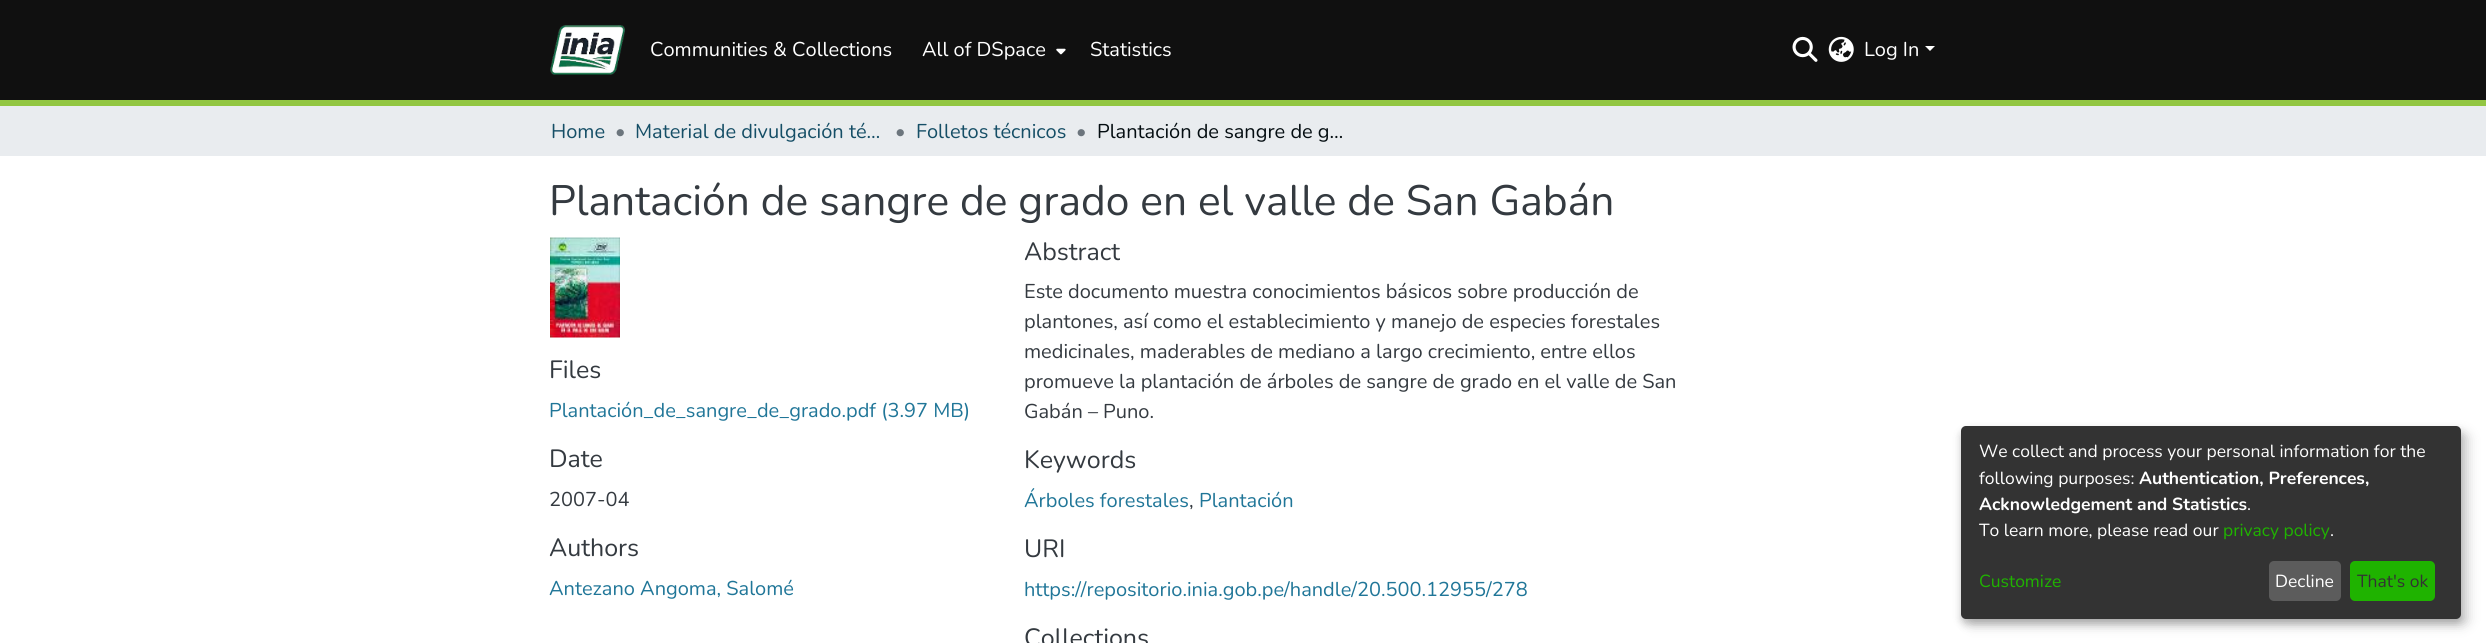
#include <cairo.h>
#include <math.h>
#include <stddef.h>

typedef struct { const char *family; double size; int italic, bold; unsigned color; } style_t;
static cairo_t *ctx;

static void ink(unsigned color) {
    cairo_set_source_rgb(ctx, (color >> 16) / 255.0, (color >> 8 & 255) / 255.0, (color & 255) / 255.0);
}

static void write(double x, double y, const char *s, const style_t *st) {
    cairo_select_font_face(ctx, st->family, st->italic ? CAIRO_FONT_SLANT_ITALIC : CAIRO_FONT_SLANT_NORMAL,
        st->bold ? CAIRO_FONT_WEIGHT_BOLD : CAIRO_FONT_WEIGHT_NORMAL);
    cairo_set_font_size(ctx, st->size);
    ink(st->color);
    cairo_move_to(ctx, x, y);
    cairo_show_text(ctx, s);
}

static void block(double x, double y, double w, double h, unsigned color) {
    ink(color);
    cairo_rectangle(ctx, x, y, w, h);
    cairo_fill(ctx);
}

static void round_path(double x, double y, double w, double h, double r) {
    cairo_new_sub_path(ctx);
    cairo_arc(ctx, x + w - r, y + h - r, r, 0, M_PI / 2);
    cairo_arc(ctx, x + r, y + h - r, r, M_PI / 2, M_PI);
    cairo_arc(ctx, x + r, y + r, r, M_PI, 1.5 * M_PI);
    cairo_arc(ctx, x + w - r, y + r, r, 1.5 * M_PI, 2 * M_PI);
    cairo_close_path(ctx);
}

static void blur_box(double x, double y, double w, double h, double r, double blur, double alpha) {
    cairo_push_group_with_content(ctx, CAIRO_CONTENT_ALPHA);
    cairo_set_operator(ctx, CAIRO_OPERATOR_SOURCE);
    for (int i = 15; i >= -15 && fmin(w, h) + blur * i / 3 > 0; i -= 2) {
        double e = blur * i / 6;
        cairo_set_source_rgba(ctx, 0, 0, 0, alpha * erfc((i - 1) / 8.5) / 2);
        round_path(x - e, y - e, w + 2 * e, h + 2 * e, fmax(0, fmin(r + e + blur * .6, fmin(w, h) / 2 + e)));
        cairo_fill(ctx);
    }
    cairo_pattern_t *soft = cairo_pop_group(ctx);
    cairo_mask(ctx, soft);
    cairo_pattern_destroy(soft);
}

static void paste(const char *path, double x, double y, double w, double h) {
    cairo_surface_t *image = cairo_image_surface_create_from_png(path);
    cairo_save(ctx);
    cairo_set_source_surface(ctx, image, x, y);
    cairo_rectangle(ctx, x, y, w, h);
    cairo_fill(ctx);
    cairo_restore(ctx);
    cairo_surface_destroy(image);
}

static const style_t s1 = {"Nunito", 20, 0, 0, 0xffffff};
static const style_t s2 = {"Nunito", 20, 0, 0, 0x154e66};
static const style_t s3 = {"Nunito", 20, 0, 0, 0x6c757d};
static const style_t s4 = {"Nunito", 20, 0, 0, 0x040d11};
static const style_t s5 = {"Nunito", 42.5, 0, 0, 0x343a40};
static const style_t s6 = {"Nunito", 25, 0, 0, 0x343a40};
static const style_t s7 = {"Nunito", 20, 0, 0, 0x207698};
static const style_t s8 = {"Nunito", 20, 0, 0, 0x343a40};
static const style_t s9 = {"Nunito", 17.5, 0, 0, 0xffffff};
static const style_t s10 = {"Nunito", 17.5, 0, 1, 0xffffff};
static const style_t s11 = {"Nunito", 17.5, 0, 0, 0x1fb300};
static const style_t s12 = {"Nunito", 17.5, 0, 0, 0x333333};

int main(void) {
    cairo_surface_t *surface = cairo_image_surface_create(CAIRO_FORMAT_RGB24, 2486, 643);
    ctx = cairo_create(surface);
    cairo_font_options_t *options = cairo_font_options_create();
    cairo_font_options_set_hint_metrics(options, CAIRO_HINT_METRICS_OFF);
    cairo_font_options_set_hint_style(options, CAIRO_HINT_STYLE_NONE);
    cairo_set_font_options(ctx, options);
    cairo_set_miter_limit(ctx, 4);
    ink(0xffffff);
    cairo_paint(ctx);
    block(0, 100, 2486, 6, 0x92c642);
    block(0, 0, 2486, 100, 0x101010);
    paste("pic1.png", 550, 25, 75, 50);
    write(650, 56, "Communities & Collections", &s1);
    write(922, 56, "All of DSpace", &s1);
    paste("pic2.png", 1056, 48, 10, 7);
    write(1090, 56, "Statistics", &s1);
    paste("pic3.png", 1792, 36, 26, 26);
    paste("pic4.png", 1828, 36, 26, 26);
    write(1864, 56, "Log In", &s1);
    cairo_new_path(ctx);
    cairo_move_to(ctx, 1925, 46);
    cairo_line_to(ctx, 1935, 46);
    cairo_line_to(ctx, 1930, 51);
    cairo_close_path(ctx);
    cairo_fill(ctx);
    block(0, 106, 2486, 50, 0xe9ecef);
    write(551, 138, "Home", &s2);
    write(615, 138, "•", &s3);
    write(635, 138, "Material de divulgación té…", &s2);
    write(895, 138, "•", &s3);
    write(916, 138, "Folletos técnicos", &s2);
    write(1076, 138, "•", &s3);
    write(1097, 138, "Plantación de sangre de g…", &s4);
    write(549, 215, "Plantación de sangre de grado en el valle de San Gabán", &s5);
    paste("pic5.png", 550, 237, 70, 101);
    write(549, 378, "Files", &s6);
    write(549, 417, "Plantación_de_sangre_de_grado.pdf (3.97 MB)", &s7);
    write(549, 467, "Date", &s6);
    write(549, 506, "2007-04", &s8);
    write(549, 556, "Authors", &s6);
    write(549, 595, "Antezano Angoma, Salomé", &s7);
    write(1024, 260, "Abstract", &s6);
    write(1024, 298, "Este documento muestra conocimientos básicos sobre producción de", &s8);
    write(1024, 328, "plantones, así como el establecimiento y manejo de especies forestales", &s8);
    write(1024, 358, "medicinales, maderables de mediano a largo crecimiento, entre ellos", &s8);
    write(1024, 388, "promueve la plantación de árboles de sangre de grado en el valle de San", &s8);
    write(1024, 418, "Gabán – Puno.", &s8);
    write(1024, 468, "Keywords", &s6);
    write(1024, 507, "Árboles forestales", &s7);
    write(1189, 507, ",", &s8);
    write(1199, 507, "Plantación", &s7);
    write(1024, 557, "URI", &s6);
    write(1024, 596, "https://repositorio.inia.gob.pe/handle/20.500.12955/278", &s7);
    write(1024, 646, "Collections", &s6);
    ink(0x000000);
    blur_box(1968, 433, 500, 192, 5, 6, 0.19);
    blur_box(1961, 431, 500, 193, 5, 4, 0.2);
    ink(0x333333);
    round_path(1961, 426, 500, 193, 5);
    cairo_fill(ctx);
    write(1979, 457, "We collect and process your personal information for the", &s9);
    write(1979, 484, "following purposes:", &s9);
    write(2139, 484, "Authentication, Preferences,", &s10);
    write(1979, 510, "Acknowledgement and Statistics", &s10);
    write(2247, 510, ".", &s9);
    write(1979, 536, "To learn more, please read our", &s9);
    write(2223, 536, "privacy policy", &s11);
    write(2330, 536, ".", &s9);
    write(1979, 587, "Customize", &s11);
    ink(0x5c5c5c);
    round_path(2269, 561, 72, 40, 5);
    cairo_fill(ctx);
    write(2275, 587, "Decline", &s9);
    ink(0x1fb300);
    round_path(2350, 561, 85, 40, 5);
    cairo_fill(ctx);
    write(2357, 587, "That's ok", &s12);
    cairo_surface_write_to_png(surface, "screenshot.png");
    cairo_font_options_destroy(options);
    cairo_destroy(ctx);
    cairo_surface_destroy(surface);
    return 0;
}
